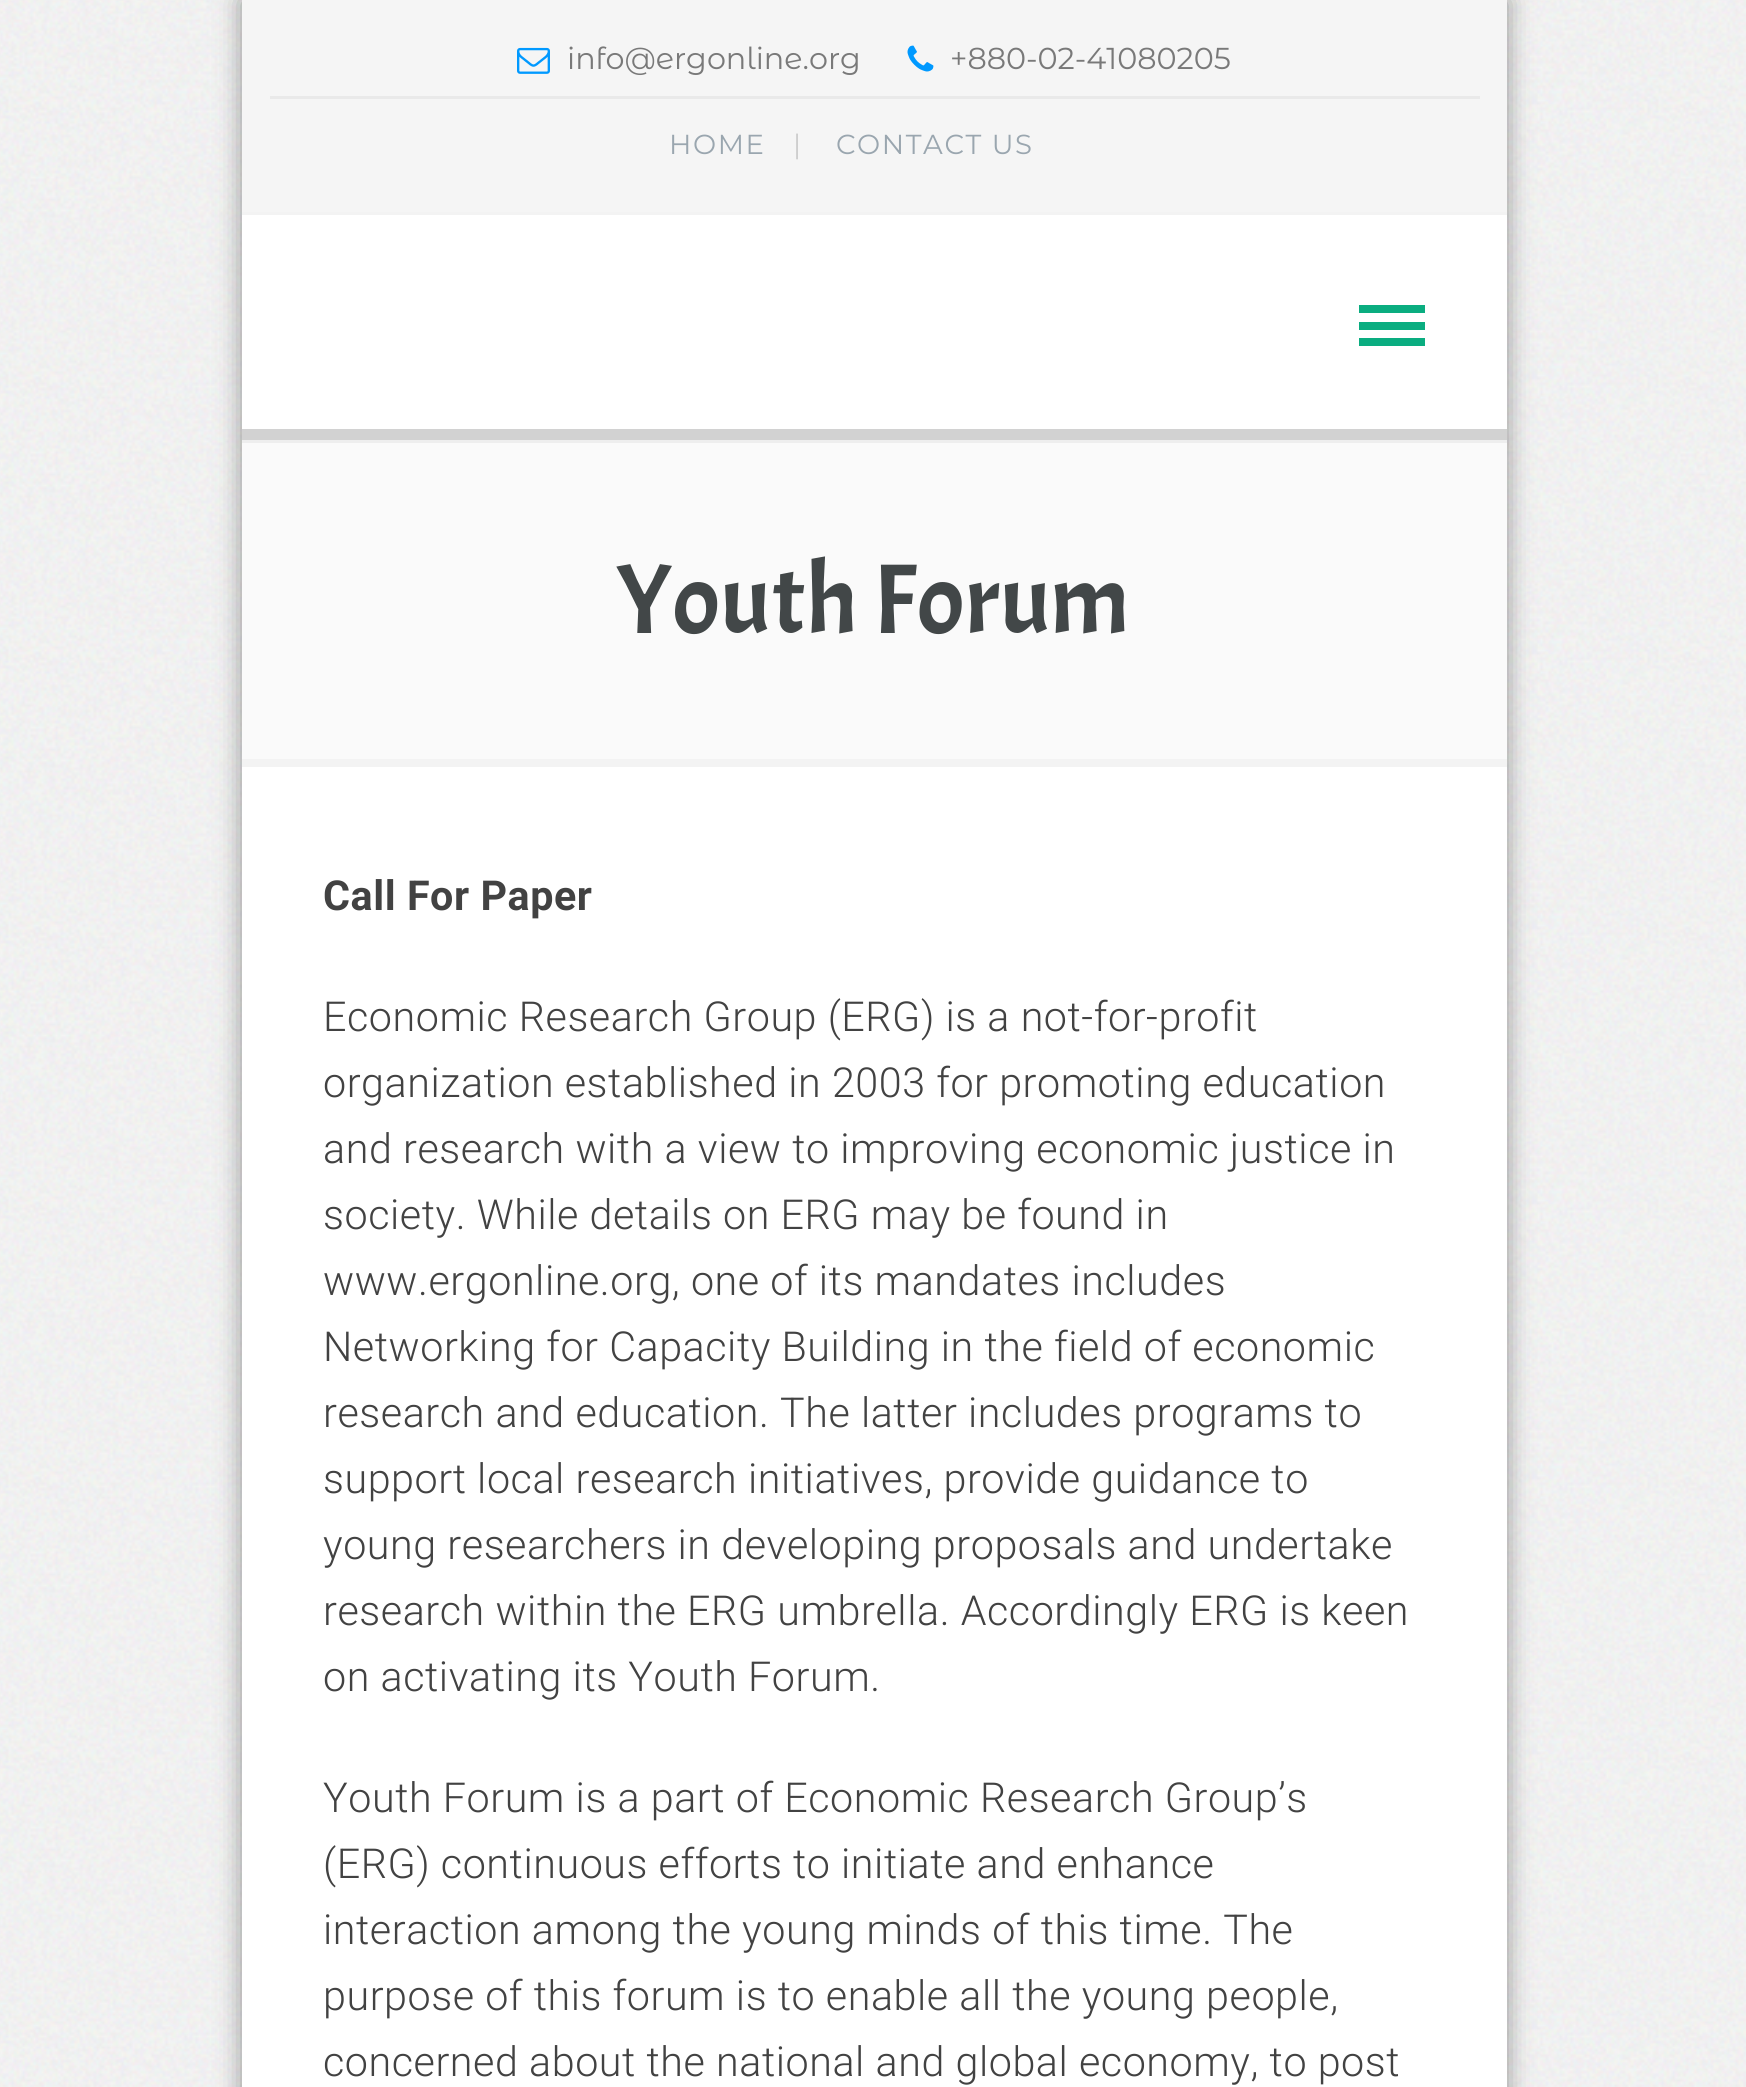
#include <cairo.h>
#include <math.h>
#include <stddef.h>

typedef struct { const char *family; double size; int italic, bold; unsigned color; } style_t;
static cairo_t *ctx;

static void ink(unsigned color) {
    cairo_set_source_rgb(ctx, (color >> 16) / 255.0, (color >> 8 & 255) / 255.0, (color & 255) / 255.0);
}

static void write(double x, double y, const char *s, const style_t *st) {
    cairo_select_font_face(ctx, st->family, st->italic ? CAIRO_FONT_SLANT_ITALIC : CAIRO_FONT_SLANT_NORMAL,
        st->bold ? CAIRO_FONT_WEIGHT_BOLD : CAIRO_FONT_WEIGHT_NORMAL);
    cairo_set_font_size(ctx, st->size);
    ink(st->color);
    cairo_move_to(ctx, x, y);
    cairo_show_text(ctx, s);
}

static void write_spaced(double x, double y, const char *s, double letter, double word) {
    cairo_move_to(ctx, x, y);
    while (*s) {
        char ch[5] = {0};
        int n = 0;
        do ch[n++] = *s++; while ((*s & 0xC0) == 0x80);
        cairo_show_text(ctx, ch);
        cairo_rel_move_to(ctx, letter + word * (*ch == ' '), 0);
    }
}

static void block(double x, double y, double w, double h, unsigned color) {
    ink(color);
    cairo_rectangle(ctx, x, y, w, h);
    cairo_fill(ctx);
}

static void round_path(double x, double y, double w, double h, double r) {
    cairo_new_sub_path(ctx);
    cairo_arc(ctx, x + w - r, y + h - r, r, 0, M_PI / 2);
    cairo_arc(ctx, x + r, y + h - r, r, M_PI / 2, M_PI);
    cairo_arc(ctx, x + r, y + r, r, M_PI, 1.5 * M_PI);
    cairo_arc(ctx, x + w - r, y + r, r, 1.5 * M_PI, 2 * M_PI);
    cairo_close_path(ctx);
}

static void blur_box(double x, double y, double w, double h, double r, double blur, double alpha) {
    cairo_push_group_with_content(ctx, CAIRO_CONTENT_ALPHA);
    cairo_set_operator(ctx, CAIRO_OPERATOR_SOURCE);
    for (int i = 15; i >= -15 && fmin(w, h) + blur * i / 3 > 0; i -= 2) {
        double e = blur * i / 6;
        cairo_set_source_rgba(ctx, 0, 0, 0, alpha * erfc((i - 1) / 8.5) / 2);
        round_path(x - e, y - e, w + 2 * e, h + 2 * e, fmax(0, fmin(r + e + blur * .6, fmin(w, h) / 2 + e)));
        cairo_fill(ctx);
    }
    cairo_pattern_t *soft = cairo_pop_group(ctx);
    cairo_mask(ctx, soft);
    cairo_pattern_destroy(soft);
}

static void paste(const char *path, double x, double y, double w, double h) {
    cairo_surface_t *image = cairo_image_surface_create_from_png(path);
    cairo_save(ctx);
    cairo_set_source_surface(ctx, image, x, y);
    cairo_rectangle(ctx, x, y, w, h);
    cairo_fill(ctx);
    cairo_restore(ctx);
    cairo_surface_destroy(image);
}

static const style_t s1 = {"Montserrat Alternates", 30.25, 0, 0, 0x797979};
static const style_t s2 = {"Acme", 99, 0, 0, 0x424748};

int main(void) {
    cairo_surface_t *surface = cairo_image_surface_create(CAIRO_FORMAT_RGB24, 1746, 2087);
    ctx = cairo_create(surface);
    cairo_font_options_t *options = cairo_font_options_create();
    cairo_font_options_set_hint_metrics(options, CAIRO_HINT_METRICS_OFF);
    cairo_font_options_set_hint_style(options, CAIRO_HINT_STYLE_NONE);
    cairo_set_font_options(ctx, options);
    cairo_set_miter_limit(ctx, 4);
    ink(0xffffff);
    cairo_paint(ctx);
    paste("pic1.png", 0, 0, 1746, 2087);
    ink(0x000000);
    blur_box(242, 0, 1265, 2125, 0, 12.5, 0.4);
    block(242, 215, 1265, 1872, 0xffffff);
    block(242, 0, 1265, 212, 0xf5f5f5);
    block(242, 212, 1265, 3, 0xf3f3f3);
    block(270, 96, 1210, 3, 0xe9e9e9);
    paste("pic2.png", 517, 47, 33, 27);
    write(567, 69, "info@ergonline.org", &s1);
    paste("pic3.png", 907, 45, 27, 27);
    write(950, 69, "+880-02-41080205", &s1);
    cairo_select_font_face(ctx, "Montserrat", CAIRO_FONT_SLANT_NORMAL, CAIRO_FONT_WEIGHT_NORMAL);
    cairo_set_font_size(ctx, 27.5);
    ink(0x9aa6af);
    write_spaced(669, 154, "HOME", 1.6, 0);
    ink(0xcccccc);
    write_spaced(793, 154, "|", 1.6, 0);
    ink(0x9aa6af);
    write_spaced(836, 154, "CONTACT US", 1.6, 0);
    block(242, 429, 1265, 11, 0xd2d2d2);
    block(1359, 305, 66, 8, 0x0aad80);
    block(1359, 322, 66, 8, 0x0aad80);
    block(1359, 338, 66, 8, 0x0aad80);
    block(242, 443, 1265, 316, 0xfafafa);
    block(242, 440, 1265, 3, 0xeeeeee);
    block(242, 759, 1265, 8, 0xf3f3f3);
    write(616, 633, "Youth Forum", &s2);
    cairo_select_font_face(ctx, "Roboto", CAIRO_FONT_SLANT_NORMAL, CAIRO_FONT_WEIGHT_BOLD);
    cairo_set_font_size(ctx, 41.25);
    ink(0x424242);
    write_spaced(323, 910, "Call For Paper", 0.55, 0);
    cairo_select_font_face(ctx, "Roboto Light", CAIRO_FONT_SLANT_NORMAL, CAIRO_FONT_WEIGHT_NORMAL);
    write_spaced(323, 1031, "Economic Research Group (ERG) is a not-for-profit", 0.55, 0);
    write_spaced(323, 1097, "organization established in 2003 for promoting education", 0.55, 0);
    write_spaced(323, 1163, "and research with a view to improving economic justice in", 0.55, 0);
    write_spaced(323, 1229, "society. While details on ERG may be found in", 0.55, 0);
    write_spaced(323, 1295, "www.ergonline.org, one of its mandates includes", 0.55, 0);
    write_spaced(323, 1361, "Networking for Capacity Building in the field of economic", 0.55, 0);
    write_spaced(323, 1427, "research and education. The latter includes programs to", 0.55, 0);
    write_spaced(323, 1493, "support local research initiatives, provide guidance to", 0.55, 0);
    write_spaced(323, 1559, "young researchers in developing proposals and undertake", 0.55, 0);
    write_spaced(323, 1625, "research within the ERG umbrella. Accordingly ERG is keen", 0.55, 0);
    write_spaced(323, 1691, "on activating its Youth Forum.", 0.55, 0);
    write_spaced(323, 1812, "Youth Forum is a part of Economic Research Group’s", 0.55, 0);
    write_spaced(323, 1878, "(ERG) continuous efforts to initiate and enhance", 0.55, 0);
    write_spaced(323, 1944, "interaction among the young minds of this time. The", 0.55, 0);
    write_spaced(323, 2010, "purpose of this forum is to enable all the young people,", 0.55, 0);
    write_spaced(323, 2076, "concerned about the national and global economy, to post", 0.55, 0);
    cairo_surface_write_to_png(surface, "screenshot.png");
    cairo_font_options_destroy(options);
    cairo_destroy(ctx);
    cairo_surface_destroy(surface);
    return 0;
}
